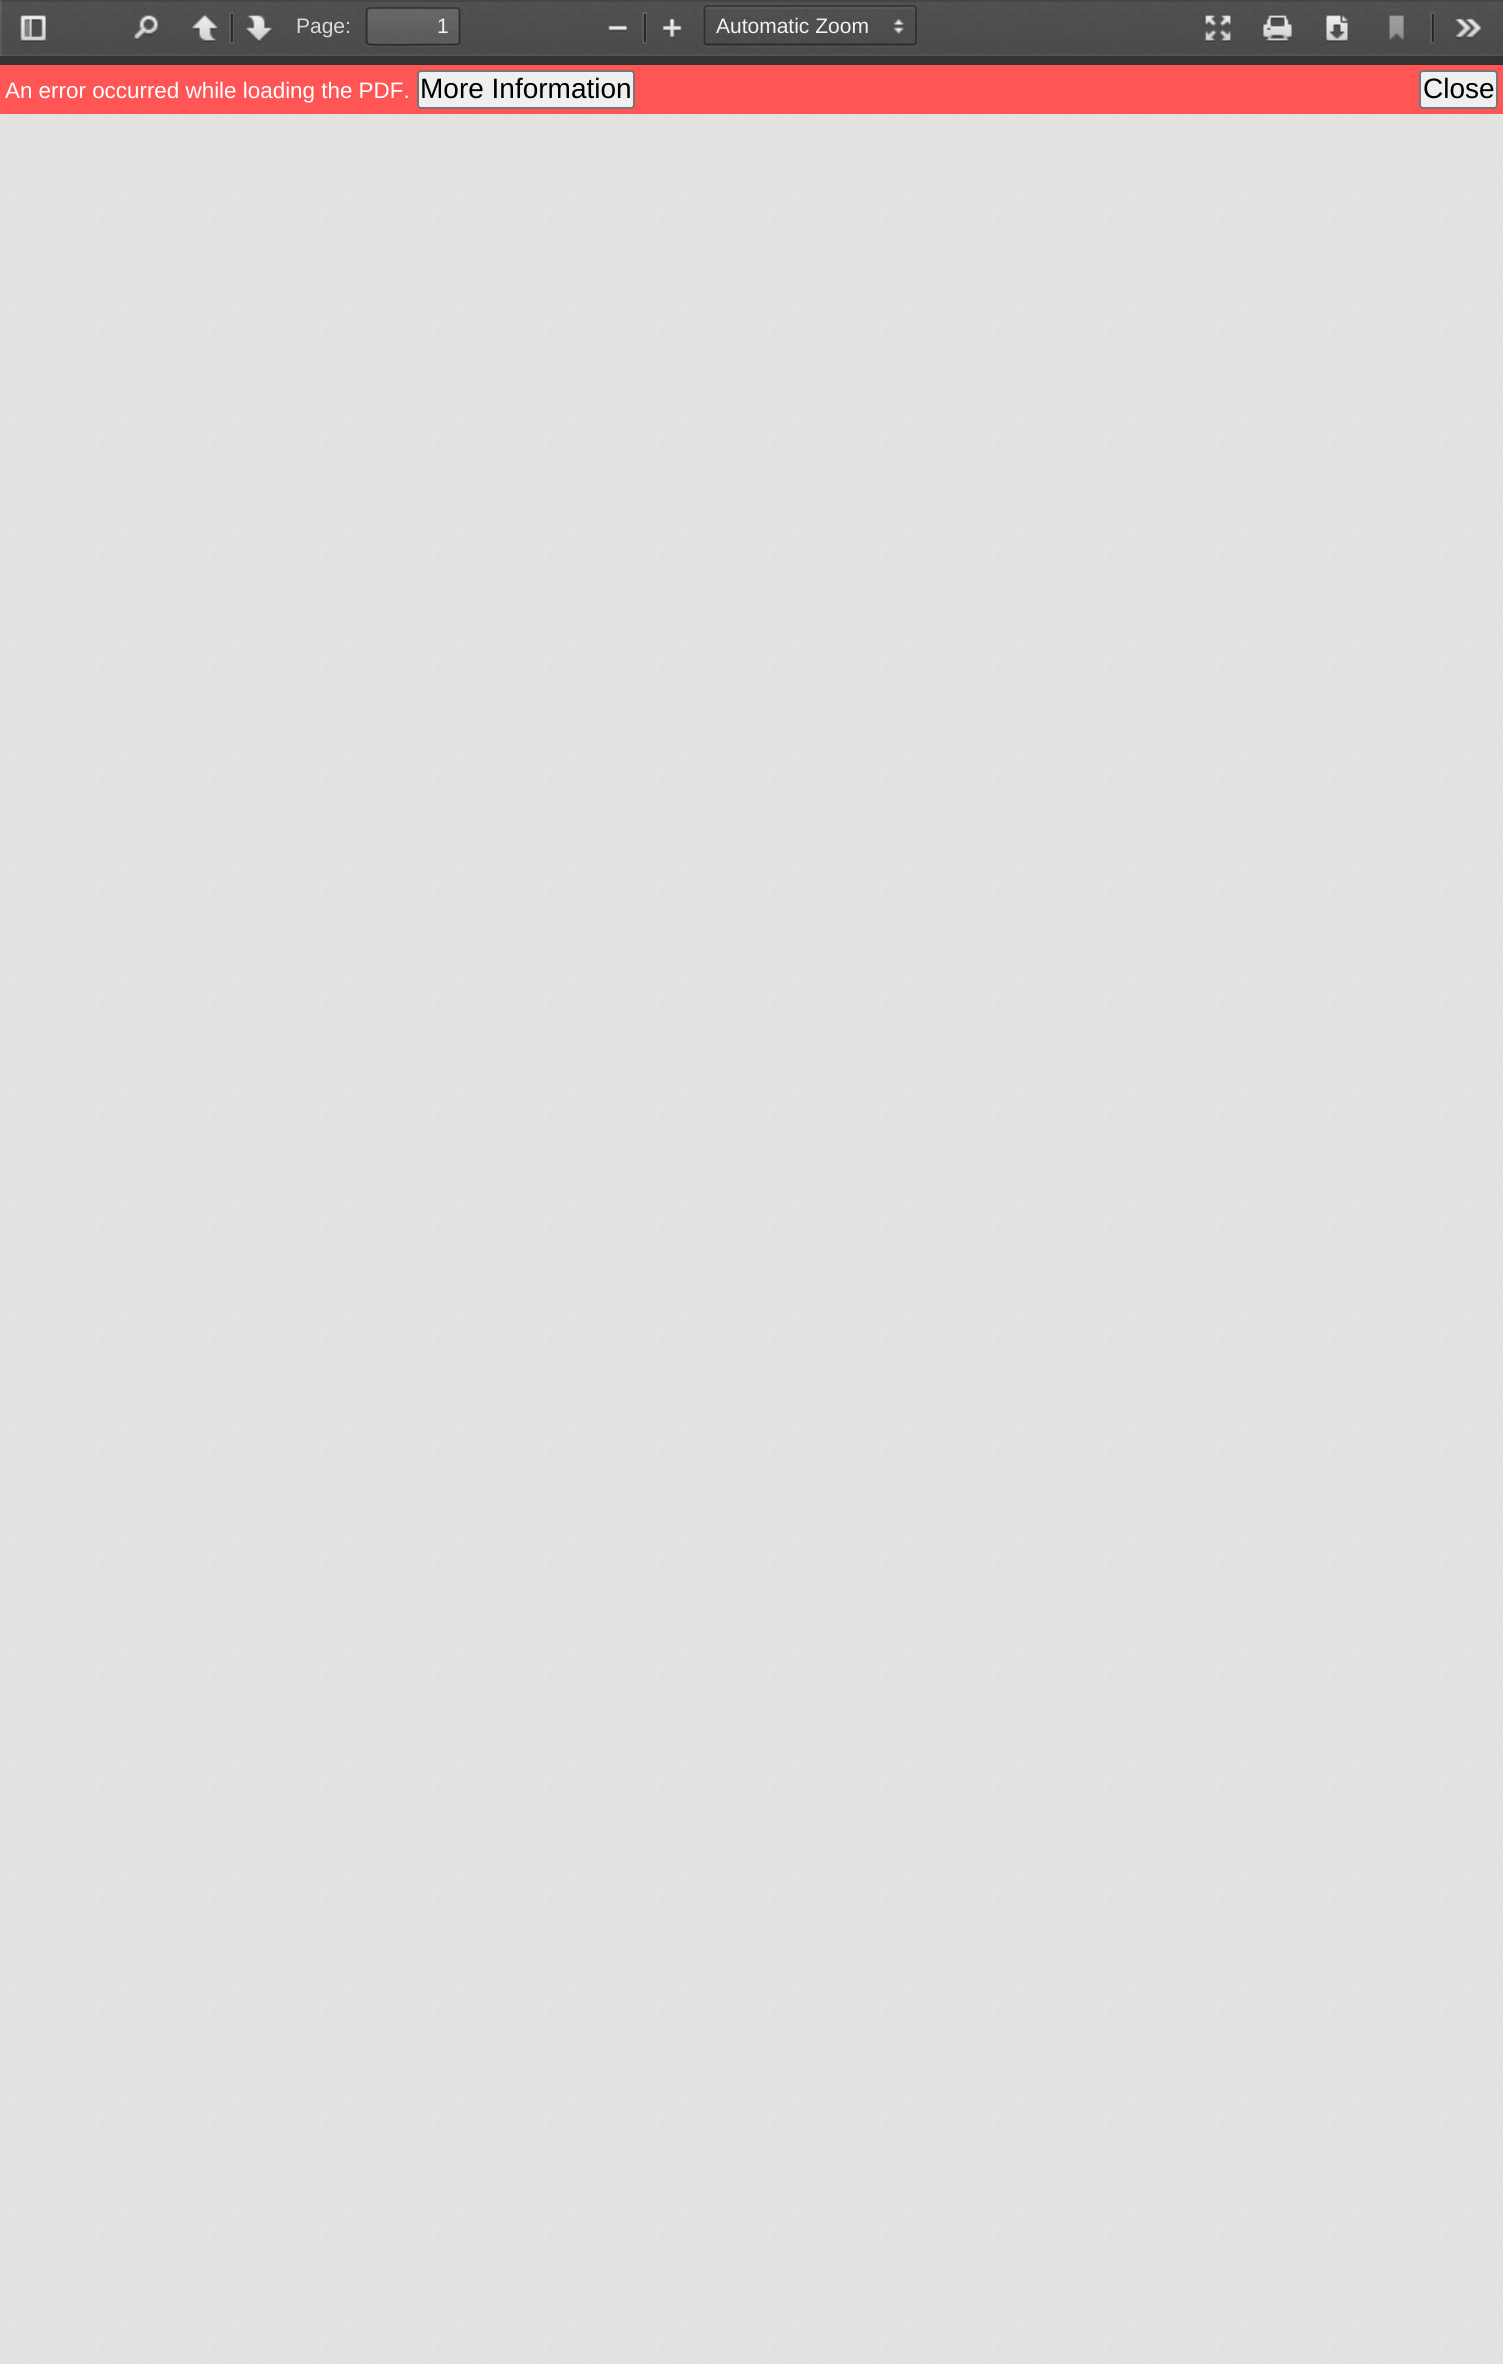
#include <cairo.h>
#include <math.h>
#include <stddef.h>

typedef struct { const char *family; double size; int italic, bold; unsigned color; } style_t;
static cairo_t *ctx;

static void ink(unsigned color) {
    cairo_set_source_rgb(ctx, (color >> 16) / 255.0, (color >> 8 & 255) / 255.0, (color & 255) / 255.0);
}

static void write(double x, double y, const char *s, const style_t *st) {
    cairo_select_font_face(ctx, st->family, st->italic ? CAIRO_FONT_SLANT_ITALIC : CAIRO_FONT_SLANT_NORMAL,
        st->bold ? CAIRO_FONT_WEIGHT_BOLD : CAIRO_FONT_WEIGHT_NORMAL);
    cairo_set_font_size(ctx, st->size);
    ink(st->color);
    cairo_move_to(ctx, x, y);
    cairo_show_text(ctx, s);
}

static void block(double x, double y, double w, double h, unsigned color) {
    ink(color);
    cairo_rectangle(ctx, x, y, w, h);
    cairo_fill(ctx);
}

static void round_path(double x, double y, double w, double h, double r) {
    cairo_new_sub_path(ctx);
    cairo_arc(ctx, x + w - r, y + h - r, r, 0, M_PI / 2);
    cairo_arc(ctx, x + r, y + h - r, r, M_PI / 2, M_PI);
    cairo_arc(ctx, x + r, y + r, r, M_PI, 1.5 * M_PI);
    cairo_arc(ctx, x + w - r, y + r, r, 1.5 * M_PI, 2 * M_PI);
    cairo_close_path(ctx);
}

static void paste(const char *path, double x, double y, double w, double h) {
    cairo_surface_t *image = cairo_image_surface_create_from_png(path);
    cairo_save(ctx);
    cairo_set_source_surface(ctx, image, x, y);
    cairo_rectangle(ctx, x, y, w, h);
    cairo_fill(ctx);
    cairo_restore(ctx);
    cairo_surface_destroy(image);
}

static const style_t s1 = {"Liberation Sans", 21, 0, 0, 0xd9d9d9};
static const style_t s2 = {"Liberation Sans", 21, 0, 0, 0xf2f2f2};
static const style_t s3 = {"Liberation Sans", 22.4, 0, 0, 0xffffff};
static const style_t s4 = {"Liberation Sans", 28, 0, 0, 0x000000};

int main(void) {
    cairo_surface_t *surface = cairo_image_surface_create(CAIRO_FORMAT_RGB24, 1503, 2364);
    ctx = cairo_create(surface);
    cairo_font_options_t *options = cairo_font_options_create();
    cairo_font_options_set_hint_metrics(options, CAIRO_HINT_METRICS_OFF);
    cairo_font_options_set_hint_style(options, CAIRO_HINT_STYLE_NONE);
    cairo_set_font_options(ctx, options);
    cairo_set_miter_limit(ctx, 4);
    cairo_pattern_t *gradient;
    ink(0xeeeeee);
    cairo_paint(ctx);
    paste("pic1.png", 0, 0, 1503, 2364);
    paste("pic2.png", 0, 0, 1503, 56);
    cairo_set_source_rgba(ctx, 1, 1, 1, 0.05);
    cairo_rectangle(ctx, 0, 54, 1503, 2);
    cairo_fill(ctx);
    cairo_set_source_rgba(ctx, 0, 0, 0, 0.15);
    cairo_rectangle(ctx, 0, 0, 1503, 2);
    cairo_fill(ctx);
    cairo_set_source_rgba(ctx, 1, 1, 1, 0.08);
    cairo_rectangle(ctx, 0, 0, 2, 56);
    cairo_fill(ctx);
    paste("pic3.png", 20, 15, 26, 27);
    paste("pic4.png", 134, 15, 24, 26);
    paste("pic5.png", 192, 15, 26, 27);
    cairo_rectangle(ctx, 230, 13, 3, 30);
    cairo_stroke(ctx);
    cairo_set_source_rgba(ctx, 0, 0, 0, 0.5);
    cairo_rectangle(ctx, 231, 14, 2, 28);
    cairo_fill(ctx);
    paste("pic6.png", 246, 15, 26, 27);
    write(296, 33, "Page:", &s1);
    cairo_set_source_rgba(ctx, 1, 1, 1, 0.05);
    cairo_new_path(ctx);
    cairo_move_to(ctx, 366, 43);
    cairo_curve_to(ctx, 366, 45, 368, 47, 370, 47);
    cairo_line_to(ctx, 456, 47);
    cairo_curve_to(ctx, 458, 47, 460, 45, 460, 43);
    cairo_line_to(ctx, 458, 45);
    cairo_line_to(ctx, 384, 46);
    cairo_curve_to(ctx, 381, 46, 368, 48, 366, 43);
    cairo_close_path(ctx);
    cairo_fill(ctx);
    cairo_set_source_rgba(ctx, 1, 1, 1, 0.09);
    round_path(368, 9, 91, 35, 2);
    cairo_fill(ctx);
    gradient = cairo_pattern_create_linear(413, 9, 413, 44);
    cairo_pattern_add_color_stop_rgba(gradient, 0, 1, 1, 1, 0.05);
    cairo_pattern_add_color_stop_rgba(gradient, 1, 1, 1, 1, 0);
    cairo_set_source(ctx, gradient);
    cairo_pattern_destroy(gradient);
    cairo_rectangle(ctx, 368, 9, 91, 20);
    cairo_fill(ctx);
    cairo_set_source_rgba(ctx, 0, 0, 0, 0.05);
    cairo_new_path(ctx);
    cairo_move_to(ctx, 369, 10);
    cairo_line_to(ctx, 457, 10);
    cairo_curve_to(ctx, 458, 10, 458, 11, 458, 12);
    cairo_line_to(ctx, 458, 44);
    cairo_curve_to(ctx, 459, 43, 459, 43, 459, 42);
    cairo_line_to(ctx, 459, 11);
    cairo_curve_to(ctx, 459, 10, 458, 9, 457, 9);
    cairo_line_to(ctx, 370, 9);
    cairo_curve_to(ctx, 369, 9, 368, 10, 368, 11);
    cairo_line_to(ctx, 368, 12);
    cairo_curve_to(ctx, 368, 11, 368, 10, 369, 10);
    cairo_close_path(ctx);
    cairo_fill(ctx);
    cairo_new_path(ctx);
    cairo_move_to(ctx, 367.5, 8.5);
    cairo_line_to(ctx, 368, 8.5);
    cairo_curve_to(ctx, 369.5, 7, 434.5, 8, 442, 8);
    cairo_line_to(ctx, 457, 8);
    cairo_line_to(ctx, 458.5, 8.5);
    cairo_set_source_rgba(ctx, 0, 0, 0, 0.32);
    cairo_set_line_width(ctx, 1.8);
    cairo_stroke(ctx);
    cairo_new_path(ctx);
    cairo_move_to(ctx, 458.5, 8.5);
    cairo_curve_to(ctx, 459, 9, 459.5, 10, 459.5, 10.5);
    cairo_line_to(ctx, 459.5, 42);
    cairo_curve_to(ctx, 459.5, 42.5, 459, 43.5, 458.5, 44);
    cairo_set_source_rgba(ctx, 0, 0, 0, 0.38);
    cairo_stroke(ctx);
    cairo_new_path(ctx);
    cairo_move_to(ctx, 458.5, 44);
    cairo_line_to(ctx, 457, 44.5);
    cairo_line_to(ctx, 442, 44.5);
    cairo_curve_to(ctx, 434.5, 44.5, 369.5, 45.5, 368, 44);
    cairo_line_to(ctx, 367.5, 44);
    cairo_set_source_rgba(ctx, 0, 0, 0, 0.42);
    cairo_stroke(ctx);
    cairo_new_path(ctx);
    cairo_move_to(ctx, 367.5, 44);
    cairo_curve_to(ctx, 367, 43.5, 366.5, 42.5, 366.5, 42);
    cairo_line_to(ctx, 366.5, 10.5);
    cairo_curve_to(ctx, 366.5, 10, 367, 9, 367.5, 8.5);
    cairo_set_source_rgba(ctx, 0, 0, 0, 0.38);
    cairo_stroke(ctx);
    write(437, 33, "1", &s2);
    paste("pic7.png", 608, 25, 19, 7);
    cairo_rectangle(ctx, 643, 13, 3, 30);
    cairo_set_source_rgba(ctx, 1, 1, 1, 0.08);
    cairo_set_line_width(ctx, 2);
    cairo_stroke(ctx);
    cairo_set_source_rgba(ctx, 0, 0, 0, 0.5);
    cairo_rectangle(ctx, 644, 14, 2, 28);
    cairo_fill(ctx);
    paste("pic8.png", 662, 18, 20, 21);
    cairo_set_source_rgba(ctx, 1, 1, 1, 0.05);
    cairo_new_path(ctx);
    cairo_move_to(ctx, 704, 44);
    cairo_curve_to(ctx, 705, 46, 706, 47, 708, 47);
    cairo_line_to(ctx, 913, 47);
    cairo_curve_to(ctx, 915, 47, 917, 45, 917, 43);
    cairo_line_to(ctx, 917, 42);
    cairo_curve_to(ctx, 917, 44, 915, 46, 914, 46);
    cairo_line_to(ctx, 707, 46);
    cairo_curve_to(ctx, 706, 46, 705, 45, 704, 44);
    cairo_close_path(ctx);
    cairo_fill(ctx);
    paste("pic9.png", 893, 18, 11, 16);
    cairo_new_path(ctx);
    cairo_move_to(ctx, 707, 9);
    cairo_line_to(ctx, 914, 9);
    cairo_line_to(ctx, 915, 10);
    cairo_curve_to(ctx, 915, 9, 915, 7, 913, 7);
    cairo_line_to(ctx, 707, 7);
    cairo_curve_to(ctx, 705, 7, 705, 9, 705, 10);
    cairo_close_path(ctx);
    cairo_fill(ctx);
    cairo_new_path(ctx);
    cairo_move_to(ctx, 705, 7);
    cairo_line_to(ctx, 707, 6);
    cairo_line_to(ctx, 913.5, 6);
    cairo_line_to(ctx, 915.5, 7);
    cairo_set_source_rgba(ctx, 0, 0, 0, 0.32);
    cairo_set_line_width(ctx, 1.8);
    cairo_stroke(ctx);
    cairo_new_path(ctx);
    cairo_move_to(ctx, 915.5, 7);
    cairo_curve_to(ctx, 916, 7.5, 916, 8, 916, 9);
    cairo_line_to(ctx, 916, 42);
    cairo_curve_to(ctx, 916, 42.5, 916, 43.5, 915.5, 44);
    cairo_set_source_rgba(ctx, 0, 0, 0, 0.38);
    cairo_stroke(ctx);
    cairo_new_path(ctx);
    cairo_move_to(ctx, 915.5, 44);
    cairo_line_to(ctx, 913.5, 44.5);
    cairo_line_to(ctx, 707, 44.5);
    cairo_line_to(ctx, 705, 44);
    cairo_set_source_rgba(ctx, 0, 0, 0, 0.42);
    cairo_stroke(ctx);
    cairo_new_path(ctx);
    cairo_move_to(ctx, 705, 44);
    cairo_curve_to(ctx, 704.5, 43.5, 704.5, 42.5, 704.5, 42);
    cairo_line_to(ctx, 704.5, 9);
    cairo_curve_to(ctx, 704.5, 8, 704.5, 7.5, 705, 7);
    cairo_set_source_rgba(ctx, 0, 0, 0, 0.38);
    cairo_stroke(ctx);
    write(716, 33, "Automatic Zoom", &s2);
    paste("pic10.png", 1205, 15, 26, 27);
    paste("pic11.png", 1263, 15, 29, 27);
    paste("pic12.png", 1326, 15, 22, 27);
    paste("pic13.png", 1389, 15, 15, 27);
    cairo_rectangle(ctx, 1431, 13, 3, 30);
    cairo_set_source_rgba(ctx, 1, 1, 1, 0.08);
    cairo_set_line_width(ctx, 2);
    cairo_stroke(ctx);
    cairo_set_source_rgba(ctx, 0, 0, 0, 0.5);
    cairo_rectangle(ctx, 1432, 14, 2, 28);
    cairo_fill(ctx);
    paste("pic14.png", 1455, 18, 27, 21);
    block(0, 56, 1503, 9, 0x333333);
    block(0, 65, 1503, 49, 0xff5555);
    write(5, 98, "An error occurred while loading the PDF.", &s3);
    ink(0xefefef);
    round_path(418, 71, 216, 37, 3);
    cairo_fill_preserve(ctx);
    ink(0x767676);
    cairo_stroke(ctx);
    write(420, 98, "More Information", &s4);
    ink(0xefefef);
    round_path(1420, 71, 77, 37, 3);
    cairo_fill_preserve(ctx);
    ink(0x767676);
    cairo_stroke(ctx);
    write(1423, 98, "Close", &s4);
    cairo_surface_write_to_png(surface, "screenshot.png");
    cairo_font_options_destroy(options);
    cairo_destroy(ctx);
    cairo_surface_destroy(surface);
    return 0;
}
